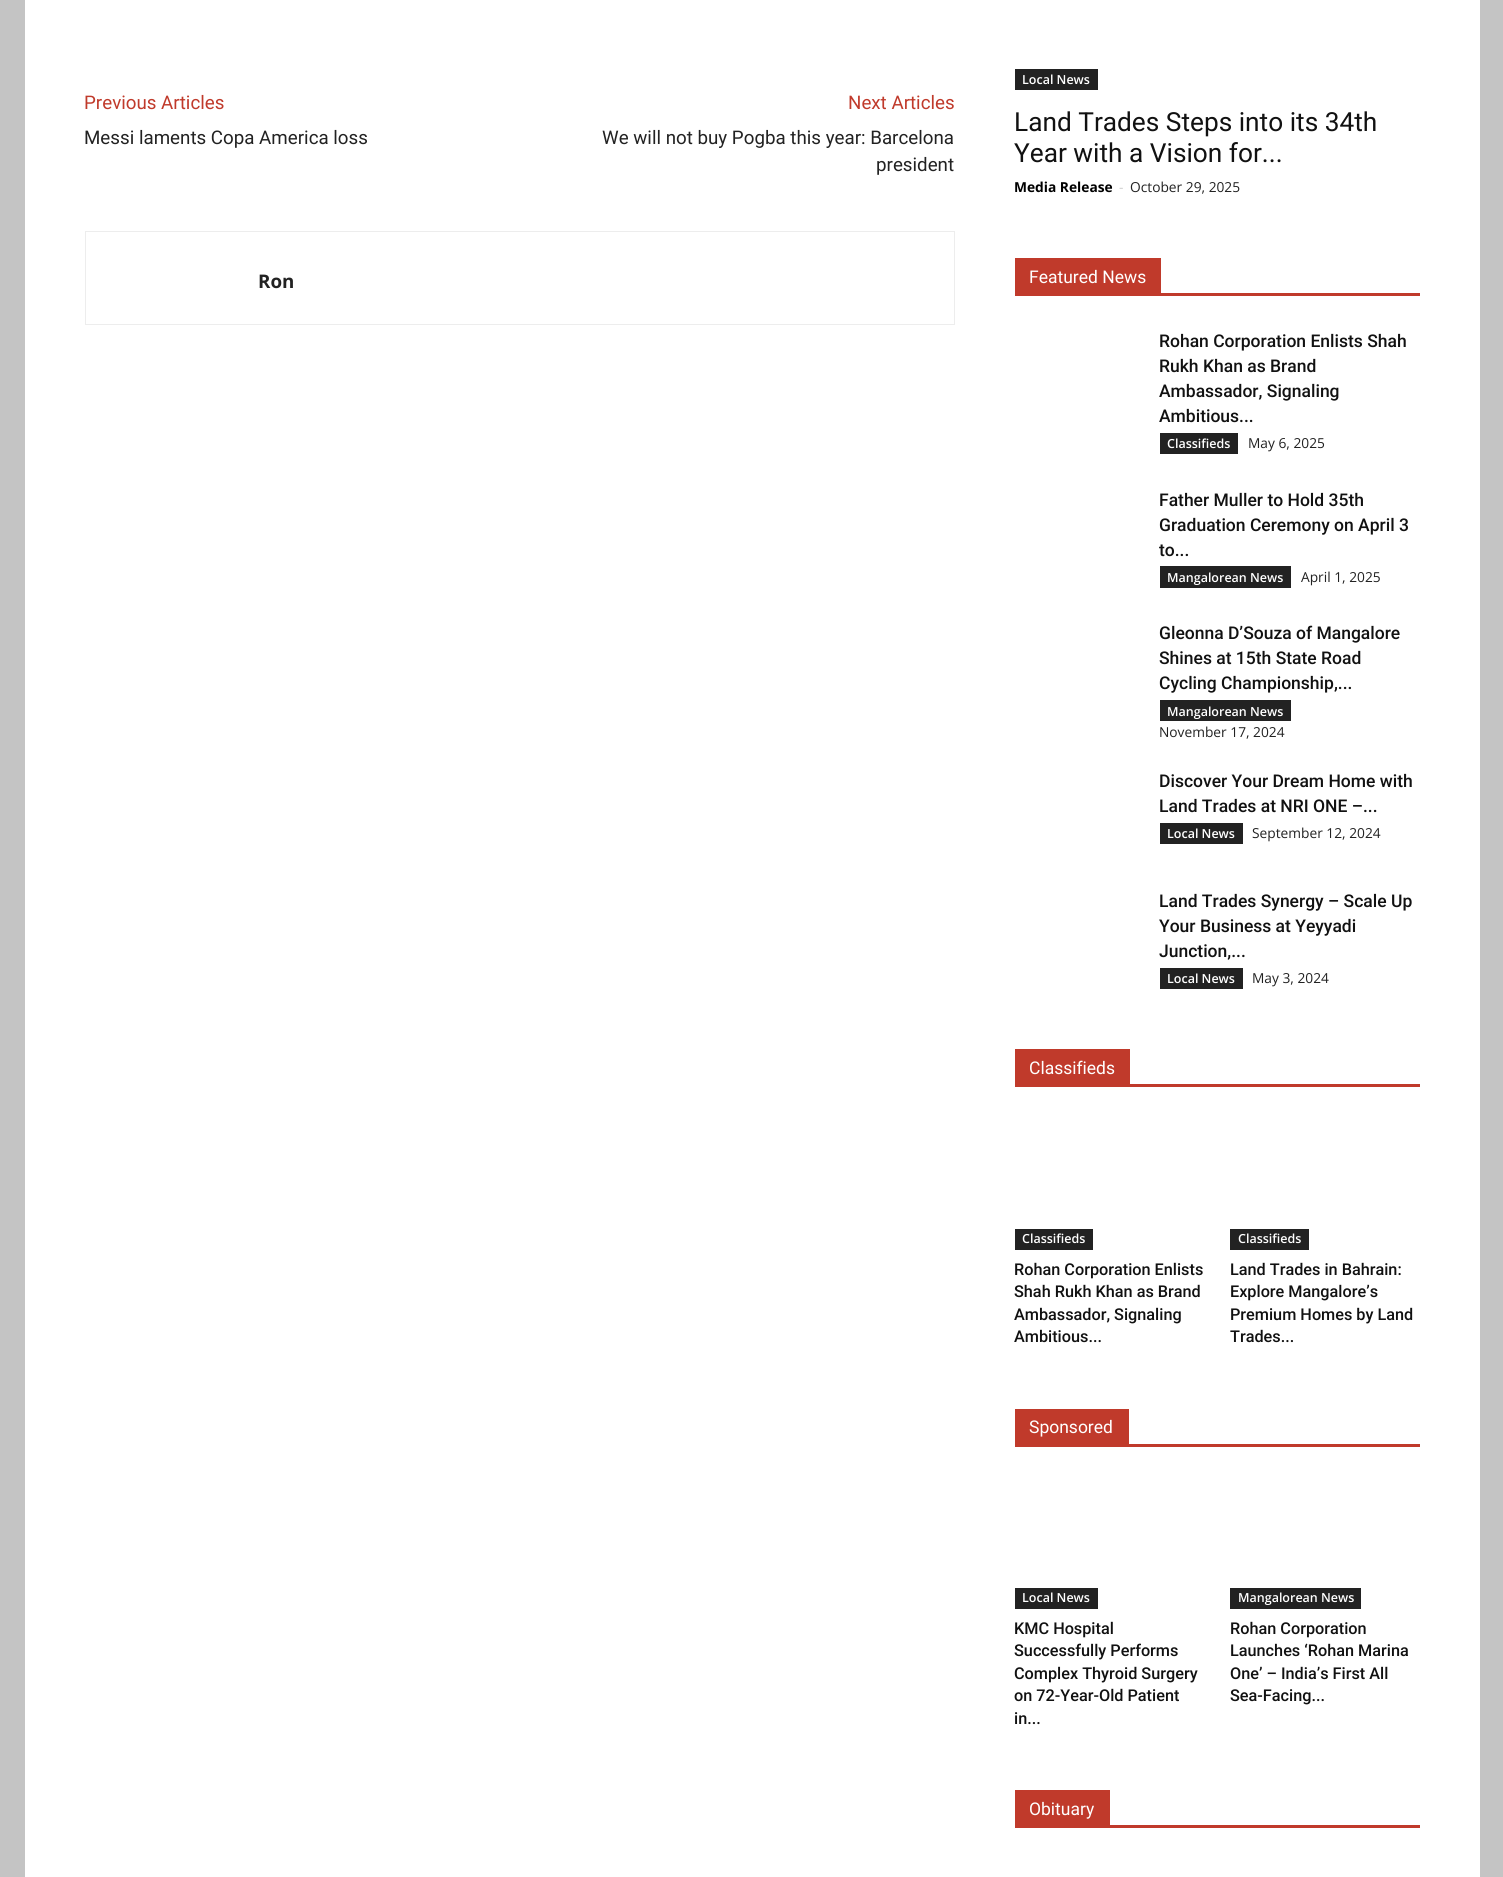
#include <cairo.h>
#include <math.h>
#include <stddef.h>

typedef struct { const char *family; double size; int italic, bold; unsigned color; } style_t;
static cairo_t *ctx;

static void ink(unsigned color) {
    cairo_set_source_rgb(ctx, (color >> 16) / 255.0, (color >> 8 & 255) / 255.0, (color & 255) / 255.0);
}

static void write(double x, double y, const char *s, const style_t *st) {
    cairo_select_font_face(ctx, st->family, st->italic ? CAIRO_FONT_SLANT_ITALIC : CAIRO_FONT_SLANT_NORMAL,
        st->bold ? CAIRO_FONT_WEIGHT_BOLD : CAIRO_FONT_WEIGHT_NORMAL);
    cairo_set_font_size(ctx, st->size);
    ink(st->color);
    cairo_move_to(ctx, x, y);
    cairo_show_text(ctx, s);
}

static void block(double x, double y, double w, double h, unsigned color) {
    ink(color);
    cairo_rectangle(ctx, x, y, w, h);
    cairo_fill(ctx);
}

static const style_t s1 = {"Roboto", 18.75, 0, 0, 0xc03a2b};
static const style_t s2 = {"Roboto", 18.75, 0, 0, 0x222222};
static const style_t s3 = {"Open Sans", 18.75, 0, 1, 0x222222};
static const style_t s4 = {"Open Sans SemiBold", 12.5, 0, 0, 0xffffff};
static const style_t s5 = {"Roboto", 26.25, 0, 0, 0x111111};
static const style_t s6 = {"Open Sans", 13.75, 0, 1, 0x000000};
static const style_t s7 = {"Open Sans", 13.75, 0, 0, 0xcccccc};
static const style_t s8 = {"Open Sans", 13.75, 0, 0, 0x222222};
static const style_t s9 = {"Roboto", 17.5, 0, 0, 0xffffff};
static const style_t s10 = {"Roboto Medium", 17.5, 0, 0, 0x111111};
static const style_t s11 = {"Roboto Medium", 16.25, 0, 0, 0x111111};

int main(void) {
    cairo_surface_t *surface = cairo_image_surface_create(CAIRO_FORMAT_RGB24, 1503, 1877);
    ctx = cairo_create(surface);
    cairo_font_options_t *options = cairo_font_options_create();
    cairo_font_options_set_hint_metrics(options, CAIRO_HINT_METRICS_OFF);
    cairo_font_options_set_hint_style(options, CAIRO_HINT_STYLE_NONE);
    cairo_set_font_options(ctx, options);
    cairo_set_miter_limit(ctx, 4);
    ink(0xc4c4c4);
    cairo_paint(ctx);
    block(25, 0, 1455, 1877, 0xffffff);
    write(84, 109, "Previous Articles", &s1);
    write(84, 144, "Messi laments Copa America loss", &s2);
    write(848, 109, "Next Articles", &s1);
    write(602, 144, "We will not buy Pogba this year: Barcelona", &s2);
    write(876, 171, "president", &s2);
    cairo_rectangle(ctx, 85.5, 231.5, 869, 93);
    ink(0xededed);
    cairo_set_line_width(ctx, 1);
    cairo_stroke(ctx);
    write(258, 288, "Ron", &s3);
    block(1015, 69, 83, 21, 0x222222);
    write(1022, 84, "Local News", &s4);
    write(1014, 131, "Land Trades Steps into its 34th", &s5);
    write(1014, 162, "Year with a Vision for...", &s5);
    write(1014, 192, "Media Release", &s6);
    write(1119, 192, "-", &s7);
    write(1130, 192, "October 29, 2025", &s8);
    block(1015, 293, 405, 3, 0xc03a2b);
    block(1015, 258, 146, 35, 0xc03a2b);
    write(1029, 283, "Featured News", &s9);
    write(1159, 347, "Rohan Corporation Enlists Shah", &s10);
    write(1159, 372, "Rukh Khan as Brand", &s10);
    write(1159, 397, "Ambassador, Signaling", &s10);
    write(1159, 422, "Ambitious...", &s10);
    block(1160, 433, 78, 21, 0x222222);
    write(1167, 448, "Classifieds", &s4);
    write(1248, 448, "May 6, 2025", &s8);
    write(1159, 506, "Father Muller to Hold 35th", &s10);
    write(1159, 531, "Graduation Ceremony on April 3", &s10);
    write(1159, 556, "to...", &s10);
    block(1160, 566, 131, 22, 0x222222);
    write(1167, 582, "Mangalorean News", &s4);
    write(1301, 582, "April 1, 2025", &s8);
    write(1159, 639, "Gleonna D’Souza of Mangalore", &s10);
    write(1159, 664, "Shines at 15th State Road", &s10);
    write(1159, 689, "Cycling Championship,...", &s10);
    block(1160, 700, 131, 21, 0x222222);
    write(1167, 716, "Mangalorean News", &s4);
    write(1159, 737, "November 17, 2024", &s8);
    write(1159, 787, "Discover Your Dream Home with", &s10);
    write(1159, 812, "Land Trades at NRI ONE –...", &s10);
    block(1160, 823, 83, 21, 0x222222);
    write(1167, 838, "Local News", &s4);
    write(1252, 838, "September 12, 2024", &s8);
    write(1159, 907, "Land Trades Synergy – Scale Up", &s10);
    write(1159, 932, "Your Business at Yeyyadi", &s10);
    write(1159, 957, "Junction,...", &s10);
    block(1160, 968, 83, 21, 0x222222);
    write(1167, 983, "Local News", &s4);
    write(1252, 983, "May 3, 2024", &s8);
    block(1015, 1084, 405, 3, 0xc03a2b);
    block(1015, 1049, 115, 35, 0xc03a2b);
    write(1029, 1074, "Classifieds", &s9);
    block(1015, 1229, 78, 21, 0x222222);
    write(1022, 1243, "Classifieds", &s4);
    write(1014, 1275, "Rohan Corporation Enlists", &s11);
    write(1014, 1297, "Shah Rukh Khan as Brand", &s11);
    write(1014, 1320, "Ambassador, Signaling", &s11);
    write(1014, 1342, "Ambitious...", &s11);
    block(1230, 1229, 79, 21, 0x222222);
    write(1238, 1243, "Classifieds", &s4);
    write(1230, 1275, "Land Trades in Bahrain:", &s11);
    write(1230, 1297, "Explore Mangalore’s", &s11);
    write(1230, 1320, "Premium Homes by Land", &s11);
    write(1230, 1342, "Trades...", &s11);
    block(1015, 1444, 405, 3, 0xc03a2b);
    block(1015, 1409, 114, 35, 0xc03a2b);
    write(1029, 1433, "Sponsored", &s9);
    block(1015, 1588, 83, 21, 0x222222);
    write(1022, 1602, "Local News", &s4);
    write(1014, 1634, "KMC Hospital", &s11);
    write(1014, 1656, "Successfully Performs", &s11);
    write(1014, 1679, "Complex Thyroid Surgery", &s11);
    write(1014, 1701, "on 72-Year-Old Patient", &s11);
    write(1014, 1724, "in...", &s11);
    block(1230, 1588, 131, 21, 0x222222);
    write(1238, 1602, "Mangalorean News", &s4);
    write(1230, 1634, "Rohan Corporation", &s11);
    write(1230, 1656, "Launches ‘Rohan Marina", &s11);
    write(1230, 1679, "One’ – India’s First All", &s11);
    write(1230, 1701, "Sea-Facing...", &s11);
    block(1015, 1825, 405, 3, 0xc03a2b);
    block(1015, 1790, 95, 35, 0xc03a2b);
    write(1029, 1815, "Obituary", &s9);
    cairo_surface_write_to_png(surface, "screenshot.png");
    cairo_font_options_destroy(options);
    cairo_destroy(ctx);
    cairo_surface_destroy(surface);
    return 0;
}
